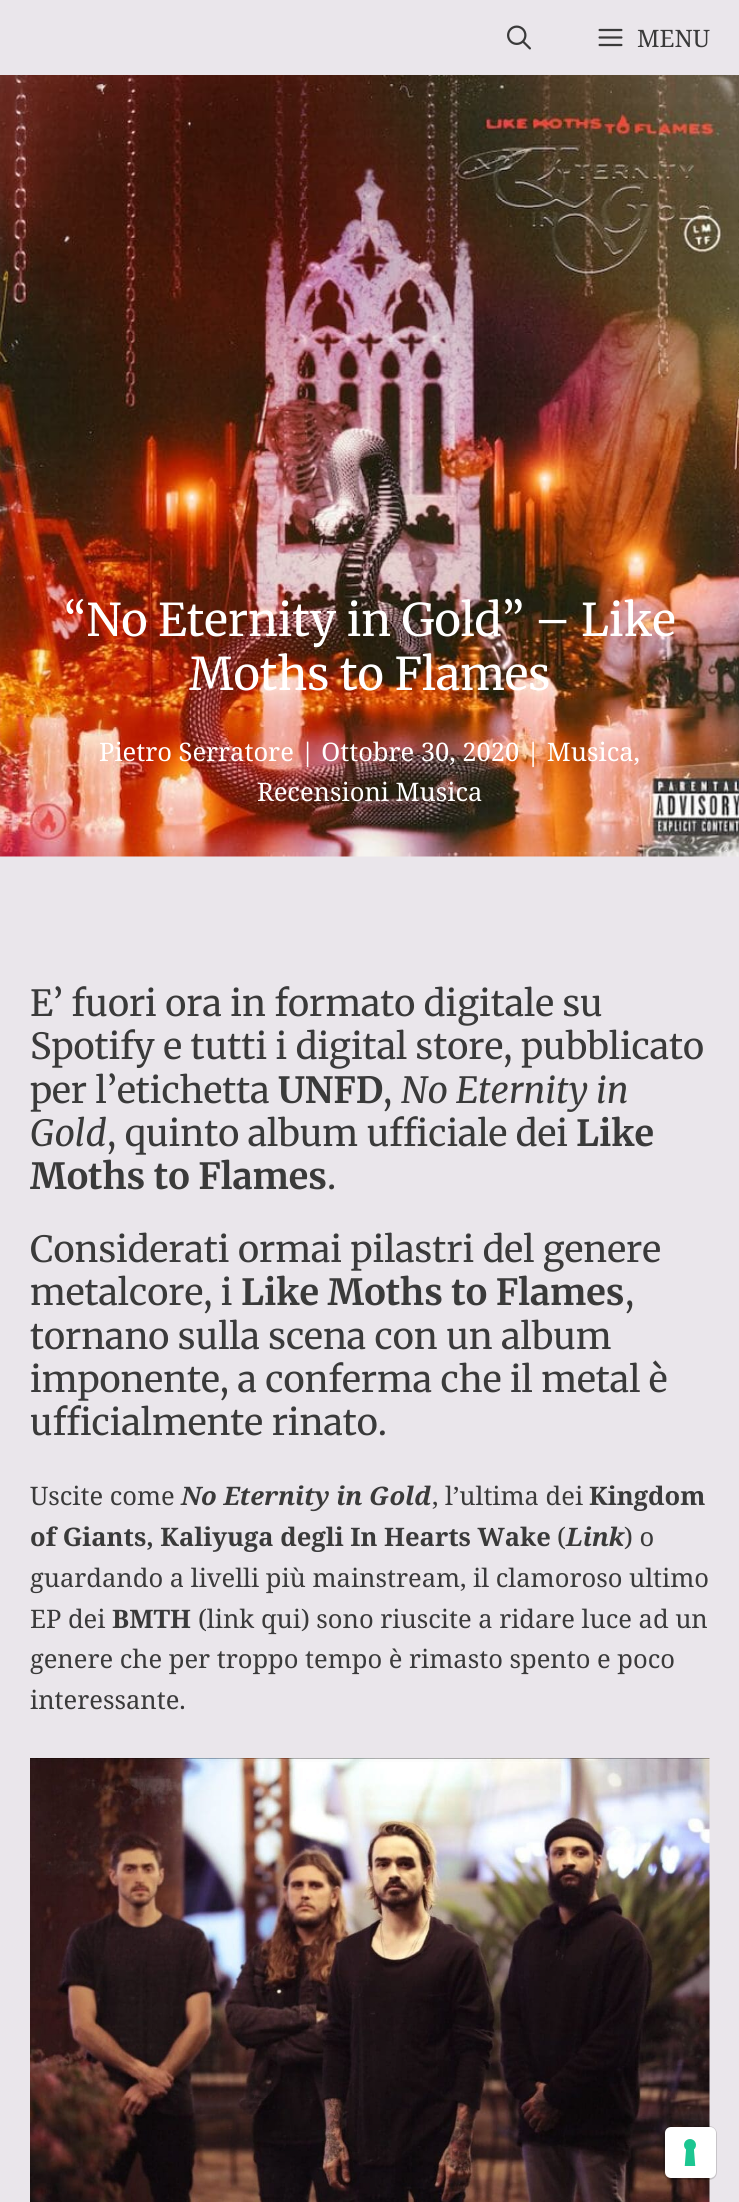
#include <cairo.h>
#include <math.h>
#include <stddef.h>

typedef struct { const char *family; double size; int italic, bold; unsigned color; } style_t;
static cairo_t *ctx;

static void ink(unsigned color) {
    cairo_set_source_rgb(ctx, (color >> 16) / 255.0, (color >> 8 & 255) / 255.0, (color & 255) / 255.0);
}

static void write(double x, double y, const char *s, const style_t *st) {
    cairo_select_font_face(ctx, st->family, st->italic ? CAIRO_FONT_SLANT_ITALIC : CAIRO_FONT_SLANT_NORMAL,
        st->bold ? CAIRO_FONT_WEIGHT_BOLD : CAIRO_FONT_WEIGHT_NORMAL);
    cairo_set_font_size(ctx, st->size);
    ink(st->color);
    cairo_move_to(ctx, x, y);
    cairo_show_text(ctx, s);
}

static void round_path(double x, double y, double w, double h, double r) {
    cairo_new_sub_path(ctx);
    cairo_arc(ctx, x + w - r, y + h - r, r, 0, M_PI / 2);
    cairo_arc(ctx, x + r, y + h - r, r, M_PI / 2, M_PI);
    cairo_arc(ctx, x + r, y + r, r, M_PI, 1.5 * M_PI);
    cairo_arc(ctx, x + w - r, y + r, r, 1.5 * M_PI, 2 * M_PI);
    cairo_close_path(ctx);
}

static void paste(const char *path, double x, double y, double w, double h) {
    cairo_surface_t *image = cairo_image_surface_create_from_png(path);
    cairo_save(ctx);
    cairo_set_source_surface(ctx, image, x, y);
    cairo_rectangle(ctx, x, y, w, h);
    cairo_fill(ctx);
    cairo_restore(ctx);
    cairo_surface_destroy(image);
}

static const style_t s1 = {"Noto Serif", 24, 0, 0, 0x3a3a3a};
static const style_t s2 = {"Merriweather", 45, 0, 0, 0xffffff};
static const style_t s3 = {"Noto Serif", 25.5, 0, 0, 0xffffff};
static const style_t s4 = {"Merriweather", 36, 0, 0, 0x3a3a3a};
static const style_t s5 = {"Merriweather", 36, 0, 1, 0x3a3a3a};
static const style_t s6 = {"Merriweather", 36, 1, 0, 0x3a3a3a};
static const style_t s7 = {"Noto Serif", 25.5, 0, 0, 0x3a3a3a};
static const style_t s8 = {"Noto Serif", 25.5, 1, 1, 0x3a3a3a};
static const style_t s9 = {"Noto Serif", 25.5, 0, 1, 0x3a3a3a};

int main(void) {
    cairo_surface_t *surface = cairo_image_surface_create(CAIRO_FORMAT_RGB24, 739, 2202);
    ctx = cairo_create(surface);
    cairo_font_options_t *options = cairo_font_options_create();
    cairo_font_options_set_hint_metrics(options, CAIRO_HINT_METRICS_OFF);
    cairo_font_options_set_hint_style(options, CAIRO_HINT_STYLE_NONE);
    cairo_set_font_options(ctx, options);
    cairo_set_miter_limit(ctx, 4);
    ink(0xeae6eb);
    cairo_paint(ctx);
    paste("pic1.png", 507, 25, 24, 25);
    paste("pic2.png", 598, 28, 25, 19);
    write(637, 47, "MENU", &s1);
    paste("pic3.png", 0, 75, 739, 782);
    write(64, 636, "“No Eternity in Gold” – Like", &s2);
    write(189, 690, "Moths to Flames", &s2);
    write(99, 761, "Pietro Serratore | Ottobre 30, 2020 | Musica,", &s3);
    write(257, 801, "Recensioni Musica", &s3);
    write(30, 1016, "E’ fuori ora in formato digitale su", &s4);
    write(30, 1059, "Spotify e tutti i digital store, pubblicato", &s4);
    write(30, 1103, "per l’etichetta", &s4);
    write(278, 1103, "UNFD", &s5);
    write(383, 1103, ",", &s4);
    write(401, 1103, "No Eternity in", &s6);
    write(30, 1146, "Gold", &s6);
    write(107, 1146, ", quinto album ufficiale dei", &s4);
    write(576, 1146, "Like", &s5);
    write(30, 1189, "Moths to Flames", &s5);
    write(327, 1189, ".", &s4);
    write(30, 1262, "Considerati ormai pilastri del genere", &s4);
    write(30, 1305, "metalcore, i", &s4);
    write(241, 1305, "Like Moths to Flames", &s5);
    write(625, 1305, ",", &s4);
    write(30, 1349, "tornano sulla scena con un album", &s4);
    write(30, 1392, "imponente, a conferma che il metal è", &s4);
    write(30, 1435, "ufficialmente rinato.", &s4);
    write(30, 1505, "Uscite come", &s7);
    write(181, 1505, "No Eternity in Gold", &s8);
    write(432, 1505, ", l’ultima dei", &s7);
    write(589, 1505, "Kingdom", &s9);
    write(30, 1546, "of Giants, Kaliyuga degli In Hearts Wake", &s9);
    write(557, 1546, "(", &s7);
    write(566, 1546, "Link", &s8);
    write(624, 1546, ") o", &s7);
    write(30, 1587, "guardando a livelli più mainstream, il clamoroso ultimo", &s7);
    write(30, 1628, "EP dei", &s7);
    write(112, 1628, "BMTH", &s9);
    write(198, 1628, "(link qui) sono riuscite a ridare luce ad un", &s7);
    write(30, 1668, "genere che per troppo tempo è rimasto spento e poco", &s7);
    write(30, 1709, "interessante.", &s7);
    paste("pic4.png", 30, 1758, 680, 444);
    round_path(664, 2127, 52, 52, 7);
    cairo_set_source_rgba(ctx, 0, 0, 0, 0.15);
    cairo_stroke(ctx);
    ink(0xffffff);
    round_path(665, 2127, 51, 51, 6);
    cairo_fill(ctx);
    paste("pic5.png", 684, 2139, 12, 27);
    cairo_surface_write_to_png(surface, "screenshot.png");
    cairo_font_options_destroy(options);
    cairo_destroy(ctx);
    cairo_surface_destroy(surface);
    return 0;
}
